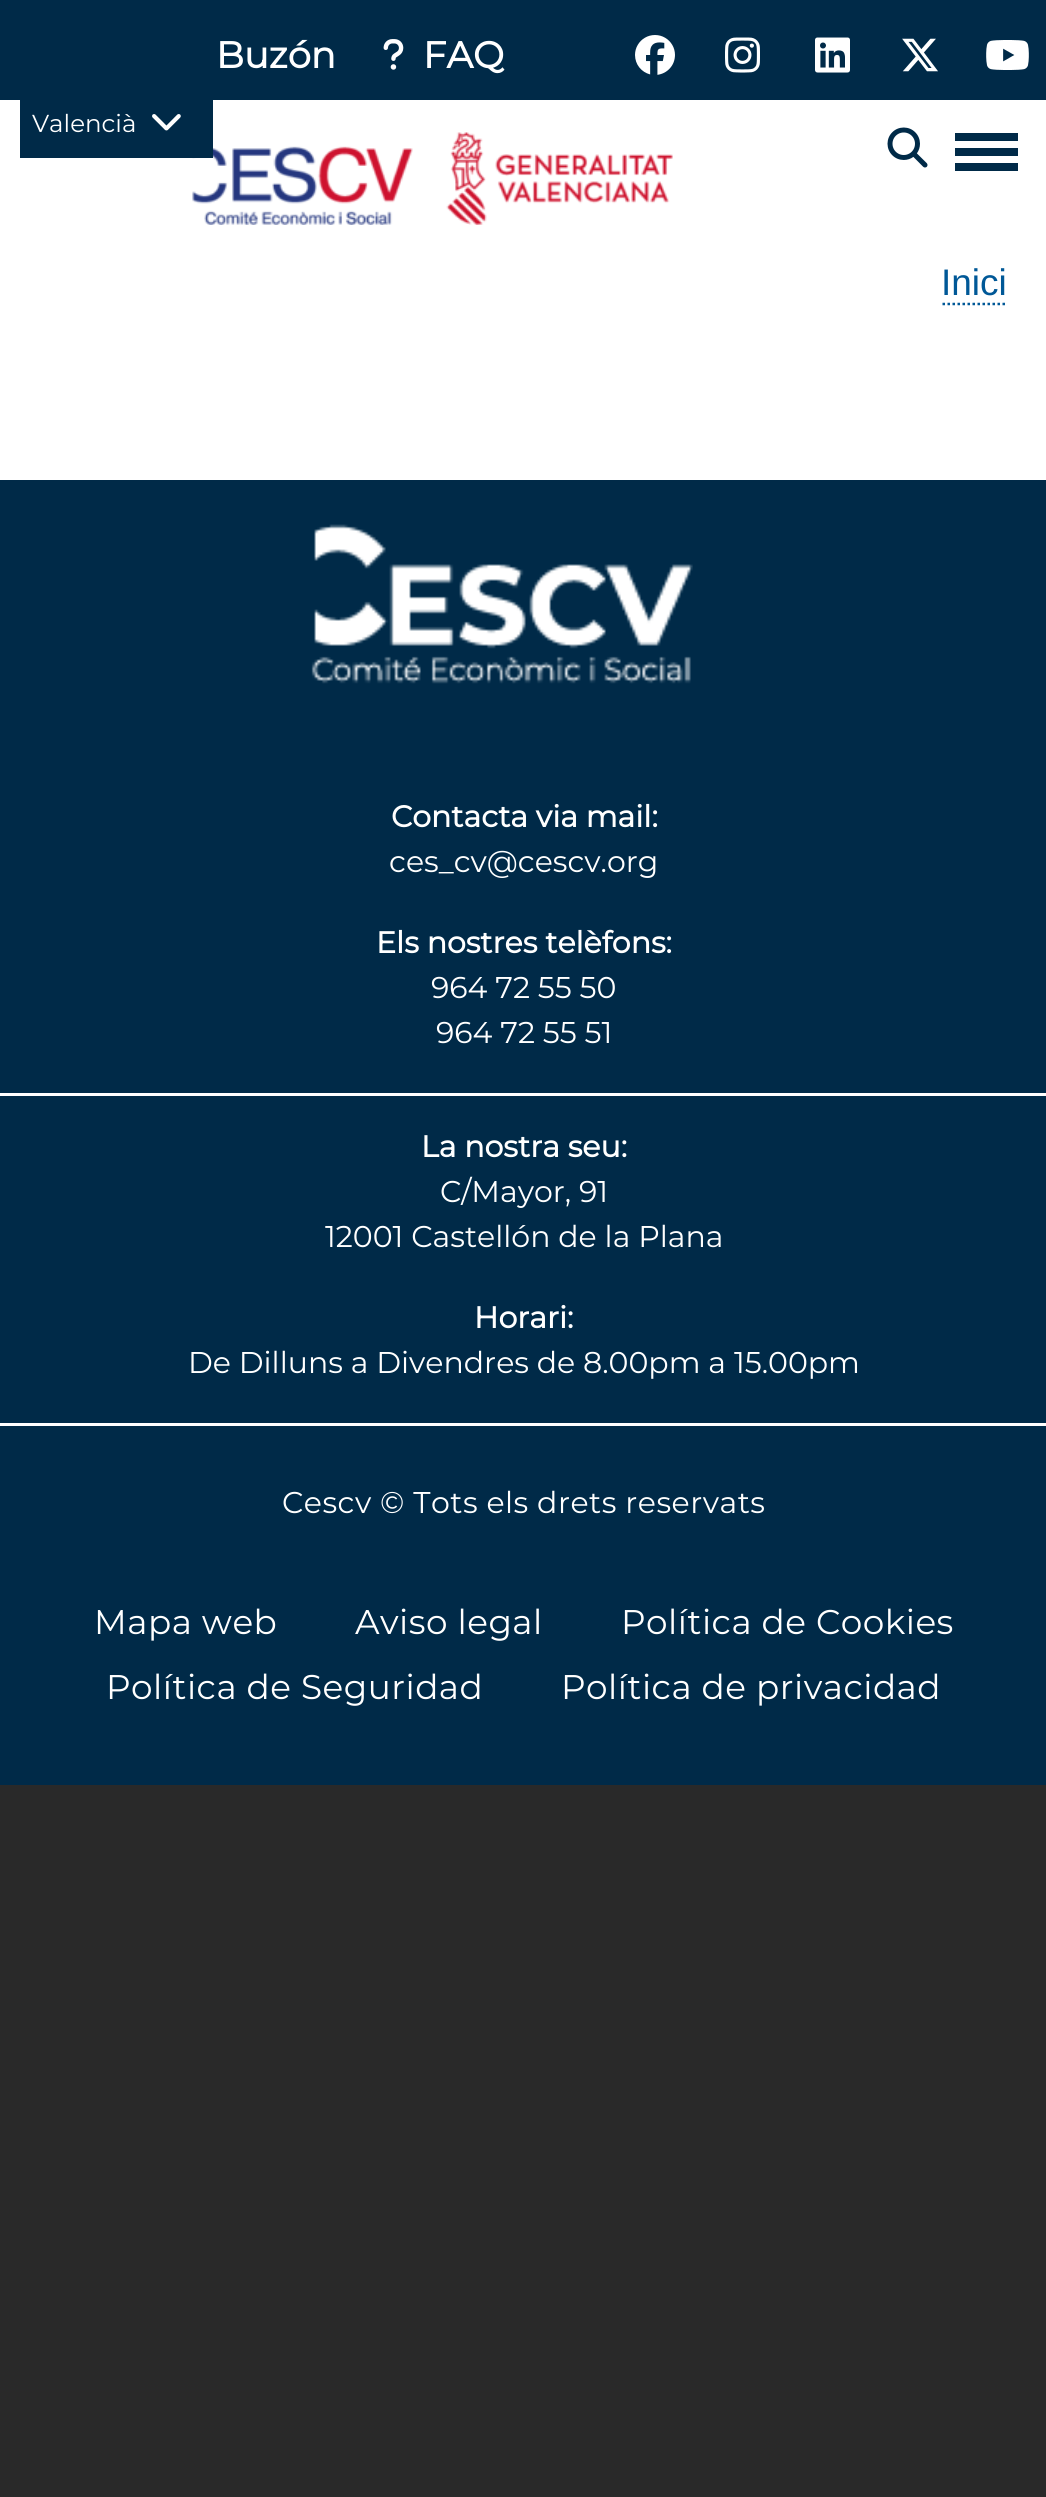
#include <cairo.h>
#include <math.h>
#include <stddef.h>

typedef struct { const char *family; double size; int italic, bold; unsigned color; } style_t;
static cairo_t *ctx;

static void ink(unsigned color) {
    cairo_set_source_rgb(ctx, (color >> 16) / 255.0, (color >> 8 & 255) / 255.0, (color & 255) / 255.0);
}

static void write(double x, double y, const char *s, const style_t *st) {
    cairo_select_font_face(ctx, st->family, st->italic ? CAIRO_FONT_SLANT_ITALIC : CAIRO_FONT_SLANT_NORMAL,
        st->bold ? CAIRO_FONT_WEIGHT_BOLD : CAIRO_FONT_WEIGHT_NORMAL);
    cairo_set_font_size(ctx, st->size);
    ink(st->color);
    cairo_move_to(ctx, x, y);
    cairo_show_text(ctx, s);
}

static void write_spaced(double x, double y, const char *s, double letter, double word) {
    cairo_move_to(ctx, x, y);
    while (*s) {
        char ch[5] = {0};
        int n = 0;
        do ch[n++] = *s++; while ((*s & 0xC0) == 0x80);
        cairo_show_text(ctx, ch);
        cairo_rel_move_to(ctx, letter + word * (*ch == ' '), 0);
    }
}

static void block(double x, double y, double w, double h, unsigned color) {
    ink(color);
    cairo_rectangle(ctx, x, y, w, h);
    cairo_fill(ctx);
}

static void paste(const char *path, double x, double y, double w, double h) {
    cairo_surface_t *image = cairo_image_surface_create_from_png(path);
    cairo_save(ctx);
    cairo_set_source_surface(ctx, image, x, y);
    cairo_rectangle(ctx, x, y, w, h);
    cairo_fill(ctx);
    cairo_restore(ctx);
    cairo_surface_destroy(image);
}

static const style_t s1 = {"Montserrat", 37, 0, 1, 0xffffff};
static const style_t s2 = {"Montserrat Thin", 24.5, 0, 0, 0xffffff};
static const style_t s3 = {"Liberation Sans", 37, 0, 0, 0x005897};
static const style_t s4 = {"Montserrat", 30, 0, 1, 0xffffff};
static const style_t s5 = {"Montserrat Thin", 30, 0, 0, 0xffffff};

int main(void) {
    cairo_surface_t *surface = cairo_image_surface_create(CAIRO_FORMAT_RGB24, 1046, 2497);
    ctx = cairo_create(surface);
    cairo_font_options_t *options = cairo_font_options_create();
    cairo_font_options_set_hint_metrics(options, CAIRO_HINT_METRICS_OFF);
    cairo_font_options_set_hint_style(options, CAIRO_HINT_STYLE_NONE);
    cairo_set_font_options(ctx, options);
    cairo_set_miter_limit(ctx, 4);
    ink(0x292929);
    cairo_paint(ctx);
    block(0, 100, 1046, 380, 0xffffff);
    block(0, 0, 1046, 100, 0x002a48);
    write(216, 68, "Buzón", &s1);
    paste("pic1.png", 383, 39, 21, 31);
    write(423, 68, "FAQ", &s1);
    paste("pic2.png", 635, 35, 40, 40);
    paste("pic3.png", 725, 37, 35, 36);
    paste("pic4.png", 815, 37, 35, 36);
    paste("pic5.png", 902, 38, 36, 34);
    paste("pic6.png", 986, 40, 43, 30);
    paste("pic8.png", 192, 132, 481, 93);
    block(20, 100, 193, 58, 0x002a48);
    write(32, 132, "Valencià", &s2);
    paste("pic7.png", 152, 114, 29, 17);
    block(955, 133, 63, 8, 0x002a48);
    block(955, 148, 63, 8, 0x002a48);
    block(955, 163, 63, 8, 0x002a48);
    paste("pic9.png", 887, 127, 41, 41);
    write(941, 295, "Inici", &s3);
    cairo_new_path(ctx);
    cairo_move_to(ctx, 942.5, 304);
    cairo_line_to(ctx, 1007.5, 304);
    cairo_set_line_width(ctx, 2.5);
    cairo_set_dash(ctx, (double[]){2.5, 2.5}, 2, 0);
    cairo_stroke(ctx);
    block(0, 480, 1046, 1305, 0x002a48);
    paste("pic10.png", 311, 524, 382, 160);
    block(0, 1093, 1046, 3, 0xffffff);
    write(391, 827, "Contacta via mail:", &s4);
    write(389, 872, "ces_cv@cescv.org", &s5);
    write(376, 953, "Els nostres telèfons:", &s4);
    write(431, 998, "964 72 55 50", &s5);
    write(436, 1043, "964 72 55 51", &s5);
    block(0, 1423, 1046, 3, 0xffffff);
    write(421, 1157, "La nostra seu:", &s4);
    write(440, 1202, "C/Mayor, 91", &s5);
    write(325, 1247, "12001 Castellón de la Plana", &s5);
    write(474, 1328, "Horari:", &s4);
    write(188, 1373, "De Dilluns a Divendres de 8.00pm a 15.00pm", &s5);
    write_spaced(282, 1513, "Cescv © Tots els drets reservats", 0.5, 0);
    cairo_set_font_size(ctx, 34.25);
    write_spaced(94, 1634, "Mapa web", 0.5, 0);
    write_spaced(355, 1634, "Aviso legal", 0.5, 0);
    write_spaced(621, 1634, "Política de Cookies", 0.5, 0);
    write_spaced(106, 1699, "Política de Seguridad", 0.5, 0);
    write_spaced(561, 1699, "Política de privacidad", 0.5, 0);
    cairo_surface_write_to_png(surface, "screenshot.png");
    cairo_font_options_destroy(options);
    cairo_destroy(ctx);
    cairo_surface_destroy(surface);
    return 0;
}
